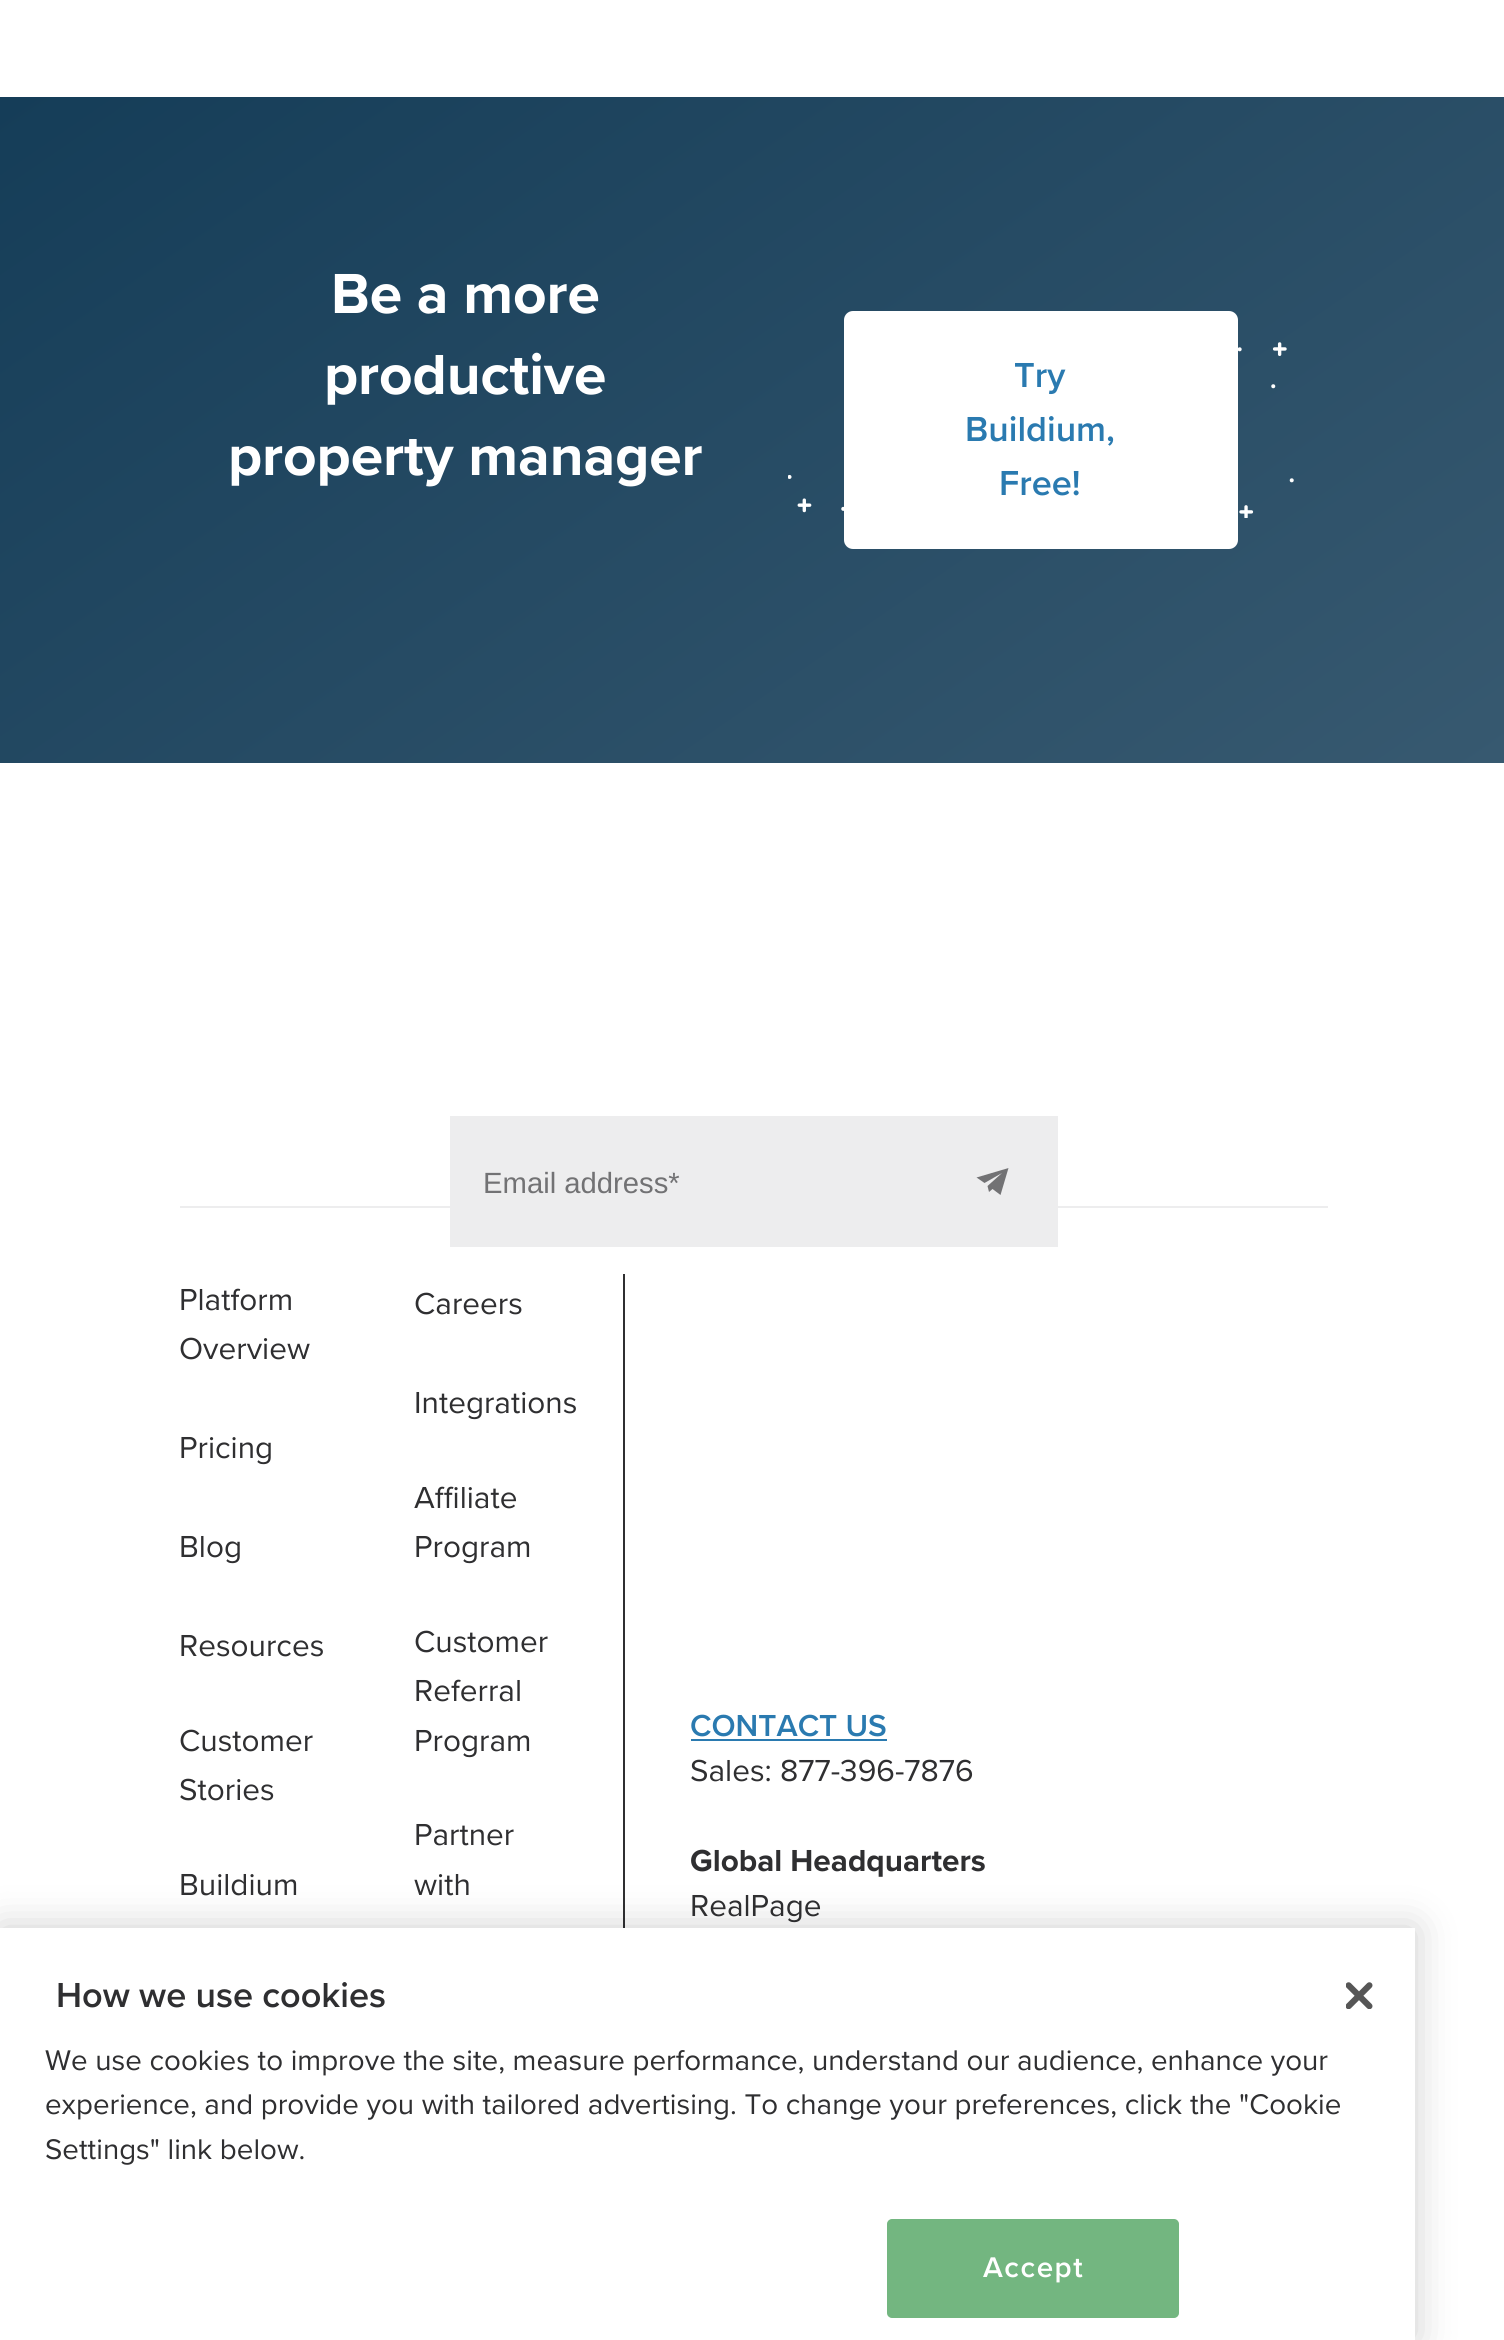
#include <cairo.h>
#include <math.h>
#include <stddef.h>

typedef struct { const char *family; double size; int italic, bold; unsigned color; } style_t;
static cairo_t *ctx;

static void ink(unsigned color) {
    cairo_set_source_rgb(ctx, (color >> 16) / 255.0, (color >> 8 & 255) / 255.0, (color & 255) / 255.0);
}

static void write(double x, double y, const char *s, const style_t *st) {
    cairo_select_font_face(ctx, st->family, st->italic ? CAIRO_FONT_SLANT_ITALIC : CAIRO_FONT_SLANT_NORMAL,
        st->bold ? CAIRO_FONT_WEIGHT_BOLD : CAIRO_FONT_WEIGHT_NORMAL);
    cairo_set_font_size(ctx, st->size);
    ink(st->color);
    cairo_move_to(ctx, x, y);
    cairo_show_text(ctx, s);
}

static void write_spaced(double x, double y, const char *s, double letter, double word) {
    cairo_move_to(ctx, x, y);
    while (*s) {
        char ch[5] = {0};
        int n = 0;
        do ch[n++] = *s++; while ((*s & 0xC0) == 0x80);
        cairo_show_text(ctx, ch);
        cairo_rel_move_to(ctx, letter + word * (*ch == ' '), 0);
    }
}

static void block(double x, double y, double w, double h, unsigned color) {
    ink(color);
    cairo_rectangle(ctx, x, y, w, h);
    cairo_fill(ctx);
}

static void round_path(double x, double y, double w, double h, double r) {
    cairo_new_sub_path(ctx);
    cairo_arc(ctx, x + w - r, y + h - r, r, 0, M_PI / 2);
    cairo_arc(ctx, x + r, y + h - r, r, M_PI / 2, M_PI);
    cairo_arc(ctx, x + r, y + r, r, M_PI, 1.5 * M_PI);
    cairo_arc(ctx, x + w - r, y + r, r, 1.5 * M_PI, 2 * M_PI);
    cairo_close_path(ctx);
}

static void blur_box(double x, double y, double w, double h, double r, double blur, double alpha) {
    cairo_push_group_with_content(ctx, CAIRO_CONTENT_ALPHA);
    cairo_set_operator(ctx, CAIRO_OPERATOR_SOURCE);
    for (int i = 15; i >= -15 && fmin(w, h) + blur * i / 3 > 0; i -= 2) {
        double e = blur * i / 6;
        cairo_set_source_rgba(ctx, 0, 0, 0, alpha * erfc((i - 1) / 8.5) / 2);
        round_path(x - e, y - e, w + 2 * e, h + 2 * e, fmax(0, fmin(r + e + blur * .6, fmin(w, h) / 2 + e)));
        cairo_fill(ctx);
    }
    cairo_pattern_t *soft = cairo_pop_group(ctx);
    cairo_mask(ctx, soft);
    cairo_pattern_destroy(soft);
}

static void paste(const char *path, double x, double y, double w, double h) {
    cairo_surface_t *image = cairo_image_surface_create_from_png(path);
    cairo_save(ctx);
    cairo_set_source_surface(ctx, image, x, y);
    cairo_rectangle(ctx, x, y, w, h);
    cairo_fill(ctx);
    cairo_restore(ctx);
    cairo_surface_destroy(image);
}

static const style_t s1 = {"Proxima Nova SemiBold", 36, 0, 0, 0x2a7ab0};
static const style_t s2 = {"Liberation Sans", 29.25, 0, 0, 0x727274};
static const style_t s3 = {"Proxima Nova", 31.5, 0, 0, 0x2f2f31};
static const style_t s4 = {"Proxima Nova SemiBold", 31.5, 0, 0, 0x2a7ab0};
static const style_t s5 = {"Proxima Nova", 31.5, 0, 1, 0x2f2f31};
static const style_t s6 = {"Proxima Nova SemiBold", 36, 0, 0, 0x2f2f31};
static const style_t s7 = {"Proxima Nova", 29.5, 0, 0, 0x2f2f31};

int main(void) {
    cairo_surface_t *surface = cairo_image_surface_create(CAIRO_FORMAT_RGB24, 1504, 2340);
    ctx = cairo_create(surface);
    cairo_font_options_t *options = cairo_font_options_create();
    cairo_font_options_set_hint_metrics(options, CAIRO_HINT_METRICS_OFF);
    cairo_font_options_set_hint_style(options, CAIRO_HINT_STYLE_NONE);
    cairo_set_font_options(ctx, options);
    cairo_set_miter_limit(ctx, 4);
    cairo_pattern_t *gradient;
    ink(0xffffff);
    cairo_paint(ctx);
    gradient = cairo_pattern_create_linear(355, -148, 1150, 1007);
    cairo_pattern_add_color_stop_rgba(gradient, 0, 0.082, 0.239, 0.345, 1);
    cairo_pattern_add_color_stop_rgba(gradient, 1, 0.216, 0.349, 0.439, 1);
    cairo_set_source(ctx, gradient);
    cairo_pattern_destroy(gradient);
    cairo_rectangle(ctx, 0, 97, 1504, 666);
    cairo_fill(ctx);
    cairo_select_font_face(ctx, "Proxima Nova", CAIRO_FONT_SLANT_NORMAL, CAIRO_FONT_WEIGHT_BOLD);
    cairo_set_font_size(ctx, 58.5);
    ink(0xffffff);
    write_spaced(331, 313, "Be a more", -0.1, 0);
    write_spaced(324, 394, "productive", -0.1, 0);
    write_spaced(228, 475, "property manager", -0.1, 0);
    paste("pic1.png", 788, 342, 506, 176);
    round_path(844, 311, 394, 238, 9);
    cairo_fill(ctx);
    write(1014, 387, "Try", &s1);
    write(965, 441, "Buildium,", &s1);
    write(999, 495, "Free!", &s1);
    block(180, 1206, 1148, 2, 0xededee);
    block(450, 1116, 608, 131, 0xededee);
    ink(0x727274);
    cairo_set_fill_rule(ctx, CAIRO_FILL_RULE_EVEN_ODD);
    cairo_new_path(ctx);
    cairo_move_to(ctx, 1000.5, 1195);
    cairo_line_to(ctx, 992.5, 1189);
    cairo_line_to(ctx, 989, 1192);
    cairo_line_to(ctx, 987.5, 1186);
    cairo_line_to(ctx, 1002, 1173);
    cairo_line_to(ctx, 984.5, 1183);
    cairo_line_to(ctx, 976.5, 1177.5);
    cairo_line_to(ctx, 1008.5, 1168);
    cairo_close_path(ctx);
    cairo_fill(ctx);
    write(483, 1193, "Email address*", &s2);
    write(179, 1310, "Platform", &s3);
    write(179, 1359, "Overview", &s3);
    write(179, 1458, "Pricing", &s3);
    write(179, 1557, "Blog", &s3);
    write(179, 1656, "Resources", &s3);
    write(179, 1751, "Customer", &s3);
    write(179, 1800, "Stories", &s3);
    write(179, 1895, "Buildium", &s3);
    write(414, 1314, "Careers", &s3);
    write(414, 1413, "Integrations", &s3);
    write(414, 1508, "Affiliate", &s3);
    write(414, 1557, "Program", &s3);
    write(414, 1652, "Customer", &s3);
    write(414, 1701, "Referral", &s3);
    write(414, 1751, "Program", &s3);
    write(414, 1845, "Partner", &s3);
    write(414, 1895, "with", &s3);
    block(623, 1274, 2, 654, 0x2f2f31);
    write(690, 1736, "CONTACT US", &s4);
    block(691, 1739, 196, 2, 0x2a7ab0);
    write(690, 1781, "Sales: 877-396-7876", &s3);
    write(690, 1871, "Global Headquarters", &s5);
    write(690, 1916, "RealPage", &s3);
    ink(0x000000);
    blur_box(0, 1928, 1415, 412, 0, 20, 0.2);
    block(0, 1928, 1415, 412, 0xffffff);
    write(56, 2007, "How we use cookies", &s6);
    write(45, 2070, "We use cookies to improve the site, measure performance, understand our audience, enhance your", &s7);
    write(45, 2114, "experience, and provide you with tailored advertising. To change your preferences, click the \"Cookie", &s7);
    write(45, 2159, "Settings\" link below.", &s7);
    paste("pic2.png", 1346, 1982, 27, 27);
    ink(0x73b680);
    round_path(888, 2220, 290, 97, 4);
    cairo_fill_preserve(ctx);
    cairo_stroke(ctx);
    cairo_select_font_face(ctx, "Proxima Nova SemiBold", CAIRO_FONT_SLANT_NORMAL, CAIRO_FONT_WEIGHT_NORMAL);
    ink(0xffffff);
    write_spaced(983, 2277, "Accept", 1.5, 0);
    cairo_surface_write_to_png(surface, "screenshot.png");
    cairo_font_options_destroy(options);
    cairo_destroy(ctx);
    cairo_surface_destroy(surface);
    return 0;
}
